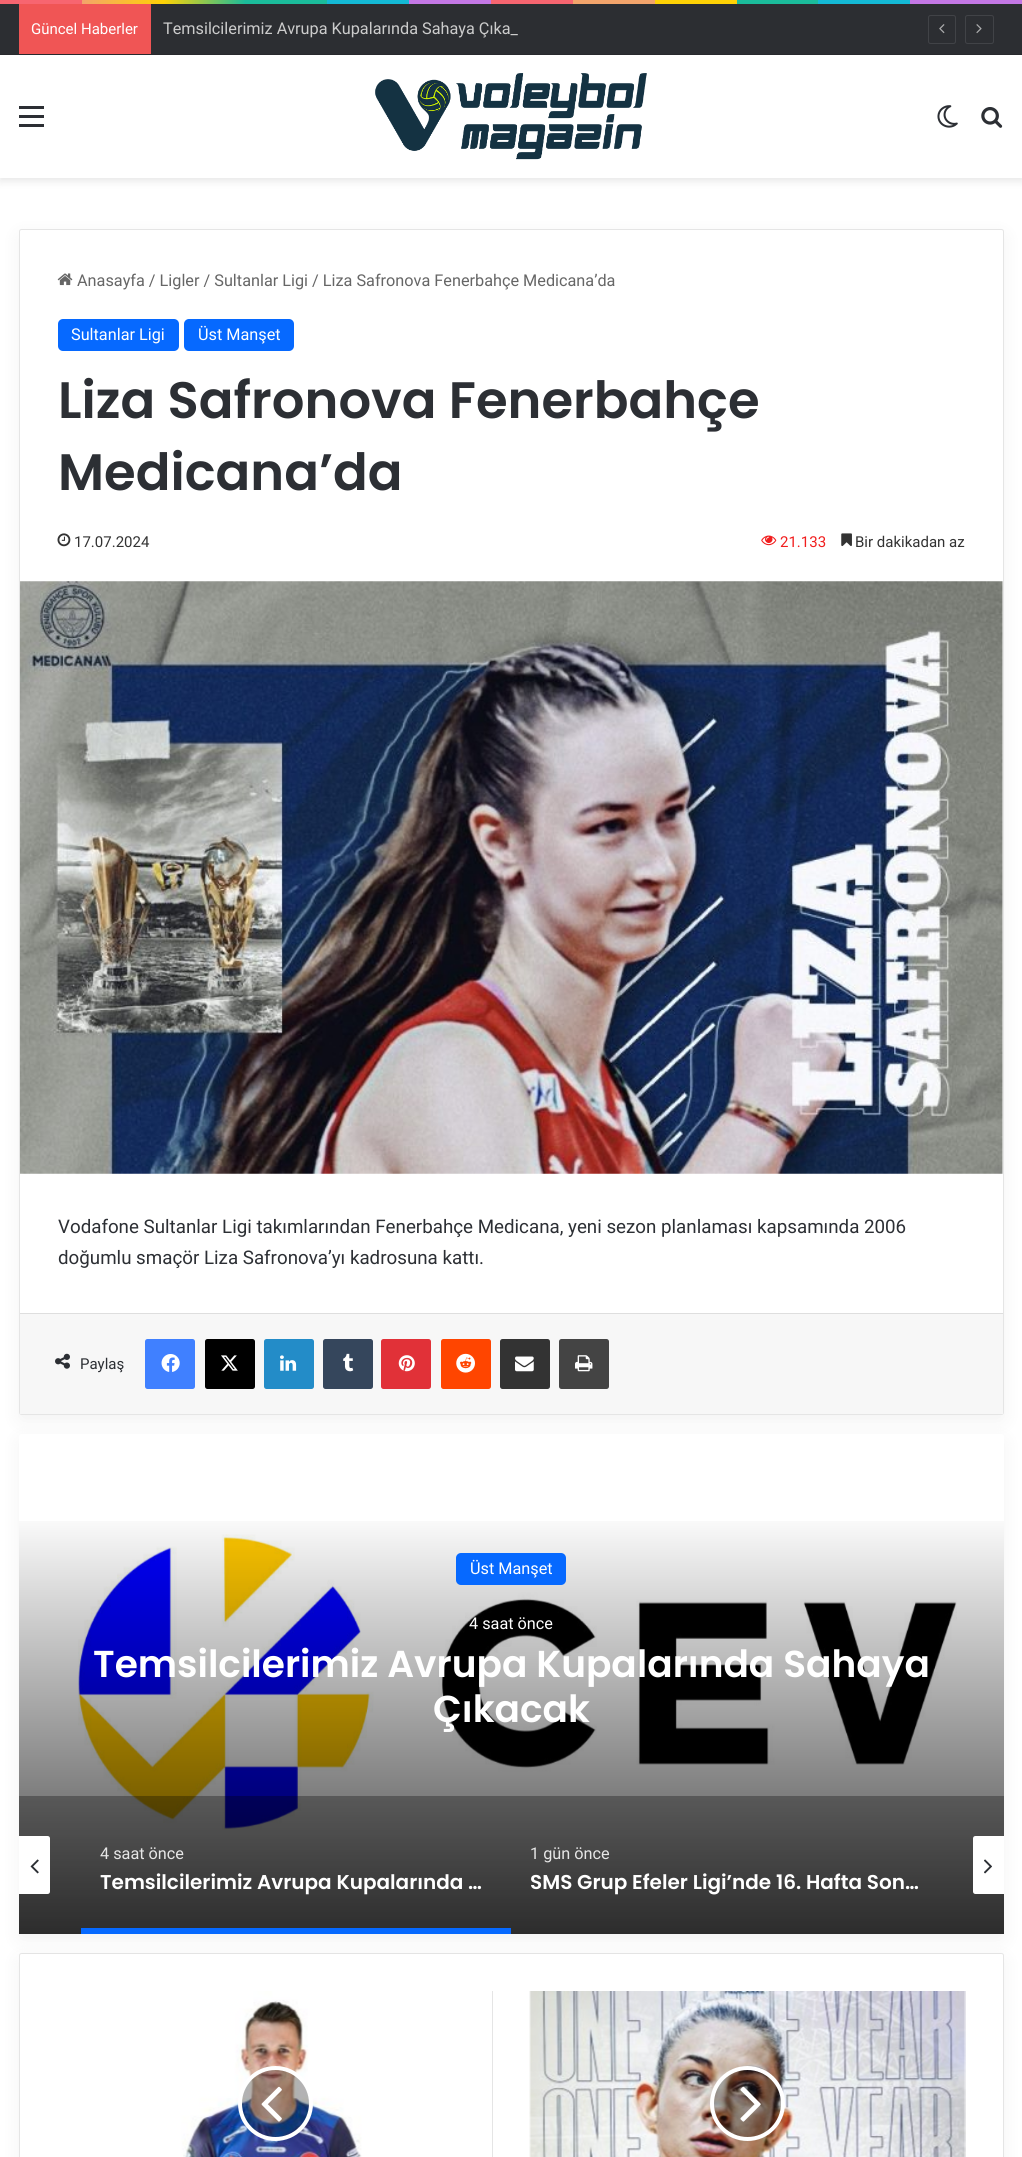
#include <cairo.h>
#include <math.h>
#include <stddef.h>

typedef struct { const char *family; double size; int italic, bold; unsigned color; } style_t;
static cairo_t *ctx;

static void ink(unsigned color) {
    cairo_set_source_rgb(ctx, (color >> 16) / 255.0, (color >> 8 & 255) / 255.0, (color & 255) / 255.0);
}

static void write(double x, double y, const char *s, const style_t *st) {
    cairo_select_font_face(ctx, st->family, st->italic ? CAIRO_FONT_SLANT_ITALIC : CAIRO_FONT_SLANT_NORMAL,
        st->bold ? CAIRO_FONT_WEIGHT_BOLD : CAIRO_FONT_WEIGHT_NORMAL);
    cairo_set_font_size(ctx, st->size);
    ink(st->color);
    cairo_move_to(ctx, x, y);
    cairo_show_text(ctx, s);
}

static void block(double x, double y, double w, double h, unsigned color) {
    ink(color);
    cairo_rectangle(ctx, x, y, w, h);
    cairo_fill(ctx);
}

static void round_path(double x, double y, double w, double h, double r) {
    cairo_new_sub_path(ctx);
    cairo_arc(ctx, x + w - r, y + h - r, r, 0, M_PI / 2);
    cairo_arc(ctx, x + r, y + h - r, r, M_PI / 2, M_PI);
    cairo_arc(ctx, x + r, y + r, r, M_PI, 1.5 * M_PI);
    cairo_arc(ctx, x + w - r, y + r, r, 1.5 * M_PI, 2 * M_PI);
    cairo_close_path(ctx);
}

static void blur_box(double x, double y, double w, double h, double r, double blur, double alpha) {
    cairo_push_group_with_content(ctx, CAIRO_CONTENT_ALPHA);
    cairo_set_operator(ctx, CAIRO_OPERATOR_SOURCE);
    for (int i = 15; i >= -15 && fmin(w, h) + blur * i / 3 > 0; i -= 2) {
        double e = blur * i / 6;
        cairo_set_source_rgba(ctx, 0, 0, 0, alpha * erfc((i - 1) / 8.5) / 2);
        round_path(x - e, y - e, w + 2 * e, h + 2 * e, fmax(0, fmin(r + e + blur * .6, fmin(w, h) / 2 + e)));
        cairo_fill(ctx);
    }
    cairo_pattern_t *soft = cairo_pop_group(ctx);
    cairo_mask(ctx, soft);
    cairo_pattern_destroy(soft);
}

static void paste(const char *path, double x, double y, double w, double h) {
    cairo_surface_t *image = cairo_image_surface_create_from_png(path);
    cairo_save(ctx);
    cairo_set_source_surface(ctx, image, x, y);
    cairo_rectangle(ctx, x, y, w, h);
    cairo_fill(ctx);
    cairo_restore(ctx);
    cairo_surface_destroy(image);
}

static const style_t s1 = {"Roboto", 15, 0, 0, 0xffffff};
static const style_t s2 = {"Roboto", 16.25, 0, 0, 0xcccccc};
static const style_t s3 = {"Roboto", 16.25, 0, 0, 0x666666};
static const style_t s4 = {"Roboto", 16.25, 0, 0, 0xffffff};
static const style_t s5 = {"Poppins SemiBold", 51.25, 0, 0, 0x2c2f34};
static const style_t s6 = {"Roboto", 15, 0, 0, 0x333333};
static const style_t s7 = {"Roboto", 15, 0, 0, 0xf11e1e};
static const style_t s8 = {"Roboto", 18.75, 0, 0, 0x2c2f34};
static const style_t s9 = {"Roboto", 15, 0, 0, 0x2c2f34};
static const style_t s10 = {"Poppins SemiBold", 37.5, 0, 0, 0xffffff};
static const style_t s11 = {"Roboto", 16.25, 0, 0, 0xe6e6e6};
static const style_t s12 = {"Poppins SemiBold", 20, 0, 0, 0xffffff};

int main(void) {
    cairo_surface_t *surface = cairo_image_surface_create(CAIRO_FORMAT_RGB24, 1022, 2157);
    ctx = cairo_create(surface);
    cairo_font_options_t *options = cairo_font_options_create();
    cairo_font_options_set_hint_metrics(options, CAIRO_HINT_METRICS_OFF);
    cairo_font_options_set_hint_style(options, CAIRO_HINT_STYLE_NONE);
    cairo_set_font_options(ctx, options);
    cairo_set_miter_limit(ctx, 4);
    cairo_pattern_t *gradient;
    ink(0xffffff);
    cairo_paint(ctx);
    gradient = cairo_pattern_create_linear(0, 1.9, 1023, 1.9);
    cairo_pattern_add_color_stop_rgba(gradient, 0, 0.969, 0.396, 0.439, 1);
    cairo_pattern_add_color_stop_rgba(gradient, 0.08, 0.969, 0.396, 0.439, 1);
    cairo_pattern_add_color_stop_rgba(gradient, 0.08, 0.953, 0.643, 0.42, 1);
    cairo_pattern_add_color_stop_rgba(gradient, 0.16, 1, 0.824, 0.02, 1);
    cairo_pattern_add_color_stop_rgba(gradient, 0.24, 0.106, 0.737, 0.608, 1);
    cairo_pattern_add_color_stop_rgba(gradient, 0.32, 0.106, 0.737, 0.608, 1);
    cairo_pattern_add_color_stop_rgba(gradient, 0.32, 0.078, 0.725, 0.835, 1);
    cairo_pattern_add_color_stop_rgba(gradient, 0.4, 0.078, 0.725, 0.835, 1);
    cairo_pattern_add_color_stop_rgba(gradient, 0.4, 0.765, 0.467, 0.894, 1);
    cairo_pattern_add_color_stop_rgba(gradient, 0.48, 0.765, 0.467, 0.894, 1);
    cairo_pattern_add_color_stop_rgba(gradient, 0.48, 0.969, 0.396, 0.439, 1);
    cairo_pattern_add_color_stop_rgba(gradient, 0.56, 0.969, 0.396, 0.439, 1);
    cairo_pattern_add_color_stop_rgba(gradient, 0.56, 0.953, 0.643, 0.42, 1);
    cairo_pattern_add_color_stop_rgba(gradient, 0.64, 0.953, 0.643, 0.42, 1);
    cairo_pattern_add_color_stop_rgba(gradient, 0.64, 1, 0.824, 0.02, 1);
    cairo_pattern_add_color_stop_rgba(gradient, 0.72, 1, 0.824, 0.02, 1);
    cairo_pattern_add_color_stop_rgba(gradient, 0.72, 0.106, 0.737, 0.608, 1);
    cairo_pattern_add_color_stop_rgba(gradient, 0.8, 0.106, 0.737, 0.608, 1);
    cairo_pattern_add_color_stop_rgba(gradient, 0.8, 0.078, 0.725, 0.835, 1);
    cairo_pattern_add_color_stop_rgba(gradient, 0.89, 0.078, 0.725, 0.835, 1);
    cairo_pattern_add_color_stop_rgba(gradient, 0.89, 0.765, 0.467, 0.894, 1);
    cairo_pattern_add_color_stop_rgba(gradient, 1, 0.765, 0.467, 0.894, 1);
    cairo_set_source(ctx, gradient);
    cairo_pattern_destroy(gradient);
    cairo_rectangle(ctx, 0, 0, 1022, 4);
    cairo_fill(ctx);
    ink(0x000000);
    blur_box(0, 59, 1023, 122, 0, 4.5, 0.1);
    block(0, 4, 1022, 50, 0x2c2e32);
    block(0, 54, 1022, 1, 0x28292d);
    block(19, 4, 132, 50, 0xf05555);
    write(31, 34, "Güncel Haberler", &s1);
    write(163, 34, "Temsilcilerimiz Avrupa Kupalarında Sahaya Çıka_", &s2);
    round_path(928.5, 15.5, 27, 28, 2);
    ink(0x414347);
    cairo_set_line_width(ctx, 1);
    cairo_stroke(ctx);
    paste("pic1.png", 939, 24, 6, 10);
    round_path(965.5, 15.5, 28, 28, 2);
    cairo_stroke(ctx);
    paste("pic2.png", 976, 24, 6, 10);
    block(0, 55, 1022, 123, 0xffffff);
    block(19, 115, 25, 3, 0x2c2f34);
    block(19, 106, 25, 3, 0x2c2f34);
    block(19, 124, 25, 3, 0x2c2f34);
    paste("pic3.png", 375, 73, 272, 87);
    paste("pic4.png", 937, 105, 21, 23);
    paste("pic5.png", 981, 107, 22, 21);
    ink(0x000000);
    blur_box(19, 235, 985, 1186, 2.5, 9.5, 0.05);
    ink(0xffffff);
    round_path(19.5, 229.5, 984, 1185, 2);
    cairo_fill_preserve(ctx);
    ink(0xe5e5e5);
    cairo_stroke(ctx);
    paste("pic6.png", 57, 273, 16, 13);
    write(77, 286, "Anasayfa / Ligler / Sultanlar Ligi / Liza Safronova Fenerbahçe Medicana’da", &s3);
    ink(0x0669ff);
    round_path(58, 319, 121, 32, 5);
    cairo_fill(ctx);
    write(71, 340, "Sultanlar Ligi", &s4);
    ink(0x0669ff);
    round_path(184, 319, 110, 32, 5);
    cairo_fill(ctx);
    write(198, 340, "Üst Manşet", &s4);
    write(58, 418, "Liza Safronova Fenerbahçe", &s5);
    write(58, 490, "Medicana’da", &s5);
    paste("pic7.png", 57, 533, 14, 14);
    write(74, 547, "17.07.2024", &s6);
    paste("pic8.png", 761, 535, 16, 11);
    write(780, 547, "21.133", &s7);
    paste("pic9.png", 841, 533, 11, 14);
    write(855, 547, "Bir dakikadan az", &s6);
    paste("pic10.png", 20, 581, 983, 593);
    write(58, 1233, "Vodafone Sultanlar Ligi takımlarından Fenerbahçe Medicana, yeni sezon planlaması kapsamında 2006", &s8);
    write(58, 1264, "doğumlu smaçör Liza Safronova’yı kadrosuna kattı.", &s8);
    block(20, 1314, 983, 100, 0xf7f7f7);
    block(20, 1313, 983, 1, 0xdedede);
    paste("pic11.png", 55, 1353, 15, 16);
    write(80, 1369, "Paylaş", &s9);
    ink(0x4080ff);
    round_path(145, 1339, 50, 50, 2.5);
    cairo_fill(ctx);
    paste("pic12.png", 161, 1354, 19, 18);
    ink(0x000000);
    round_path(205, 1339, 50, 50, 2.5);
    cairo_fill(ctx);
    paste("pic13.png", 221, 1355, 17, 16);
    ink(0x238cc8);
    round_path(264, 1339, 50, 50, 2.5);
    cairo_fill(ctx);
    paste("pic14.png", 280, 1355, 17, 16);
    ink(0x35465c);
    round_path(323, 1339, 50, 50, 2.5);
    cairo_fill(ctx);
    paste("pic15.png", 343, 1353, 11, 19);
    ink(0xe13138);
    round_path(381, 1339, 50, 50, 2.5);
    cairo_fill(ctx);
    paste("pic16.png", 398, 1355, 17, 17);
    ink(0xff4500);
    round_path(441, 1339, 50, 50, 2.5);
    cairo_fill(ctx);
    paste("pic17.png", 456, 1353, 19, 20);
    ink(0x333333);
    round_path(500, 1339, 50, 50, 2.5);
    cairo_fill(ctx);
    paste("pic18.png", 515, 1356, 19, 16);
    ink(0x444444);
    round_path(559, 1339, 50, 50, 2.5);
    cairo_fill(ctx);
    paste("pic19.png", 575, 1355, 18, 17);
    ink(0x000000);
    blur_box(19, 1959, 985, 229, 2.5, 9.5, 0.05);
    ink(0xffffff);
    round_path(19.5, 1953.5, 984, 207, 2);
    cairo_fill_preserve(ctx);
    ink(0xe5e5e5);
    cairo_stroke(ctx);
    ink(0x000000);
    blur_box(19, 1440, 985, 500, 2.5, 9.5, 0.05);
    ink(0xffffff);
    round_path(19, 1434, 985, 500, 2.5);
    cairo_fill(ctx);
    paste("pic20.png", 78, 1534, 879, 296);
    gradient = cairo_pattern_create_linear(511, 1509, 511, 1934);
    cairo_pattern_add_color_stop_rgba(gradient, 0, 0, 0, 0, 0);
    cairo_pattern_add_color_stop_rgba(gradient, 1, 0, 0, 0, 0.75);
    cairo_set_source(ctx, gradient);
    cairo_pattern_destroy(gradient);
    cairo_rectangle(ctx, 19, 1521, 985, 413);
    cairo_fill(ctx);
    ink(0x0669ff);
    round_path(456, 1553, 110, 32, 5);
    cairo_fill(ctx);
    write(470, 1574, "Üst Manşet", &s4);
    write(469, 1629, "4 saat önce", &s4);
    write(93, 1677, "Temsilcilerimiz Avrupa Kupalarında Sahaya", &s10);
    write(433, 1722, "Çıkacak", &s10);
    cairo_set_source_rgba(ctx, 0, 0, 0, 0.3);
    cairo_rectangle(ctx, 19, 1796, 985, 138);
    cairo_fill(ctx);
    ink(0xffffff);
    cairo_new_path(ctx);
    cairo_move_to(ctx, 19, 1836);
    cairo_line_to(ctx, 47.5, 1836);
    cairo_curve_to(ctx, 49, 1836, 50, 1837, 50, 1838.5);
    cairo_line_to(ctx, 50, 1891.5);
    cairo_curve_to(ctx, 50, 1893, 49, 1894, 47.5, 1894);
    cairo_line_to(ctx, 19, 1894);
    cairo_close_path(ctx);
    cairo_fill(ctx);
    paste("pic21.png", 30, 1859, 9, 15);
    cairo_new_path(ctx);
    cairo_move_to(ctx, 975.5, 1836);
    cairo_line_to(ctx, 1004, 1836);
    cairo_line_to(ctx, 1004, 1894);
    cairo_line_to(ctx, 975.5, 1894);
    cairo_curve_to(ctx, 974, 1894, 973, 1893, 973, 1891.5);
    cairo_line_to(ctx, 973, 1838.5);
    cairo_curve_to(ctx, 973, 1837, 974, 1836, 975.5, 1836);
    cairo_close_path(ctx);
    cairo_fill(ctx);
    paste("pic22.png", 984, 1859, 8, 15);
    block(81, 1928, 430, 6, 0x0669ff);
    write(100, 1859, "4 saat önce", &s11);
    write(100, 1889, "Temsilcilerimiz Avrupa Kupalarında …", &s12);
    write(530, 1859, "1 gün önce", &s11);
    write(530, 1889, "SMS Grup Efeler Ligi’nde 16. Hafta Son…", &s12);
    block(492, 1991, 1, 166, 0xcccccc);
    paste("pic23.png", 58, 1991, 435, 166);
    cairo_set_source_rgba(ctx, 0, 0, 0, 0.3);
    cairo_arc(ctx, 275.5, 2103.5, 35.5, 0, 2 * M_PI);
    cairo_fill_preserve(ctx);
    ink(0xffffff);
    cairo_set_line_width(ctx, 4);
    cairo_stroke(ctx);
    paste("pic24.png", 261, 2086, 21, 36);
    paste("pic25.png", 529, 1991, 437, 166);
    cairo_set_source_rgba(ctx, 0, 0, 0, 0.3);
    cairo_arc(ctx, 747.5, 2103.5, 35.5, 0, 2 * M_PI);
    cairo_fill_preserve(ctx);
    ink(0xffffff);
    cairo_stroke(ctx);
    paste("pic26.png", 740, 2086, 21, 36);
    cairo_surface_write_to_png(surface, "screenshot.png");
    cairo_font_options_destroy(options);
    cairo_destroy(ctx);
    cairo_surface_destroy(surface);
    return 0;
}
